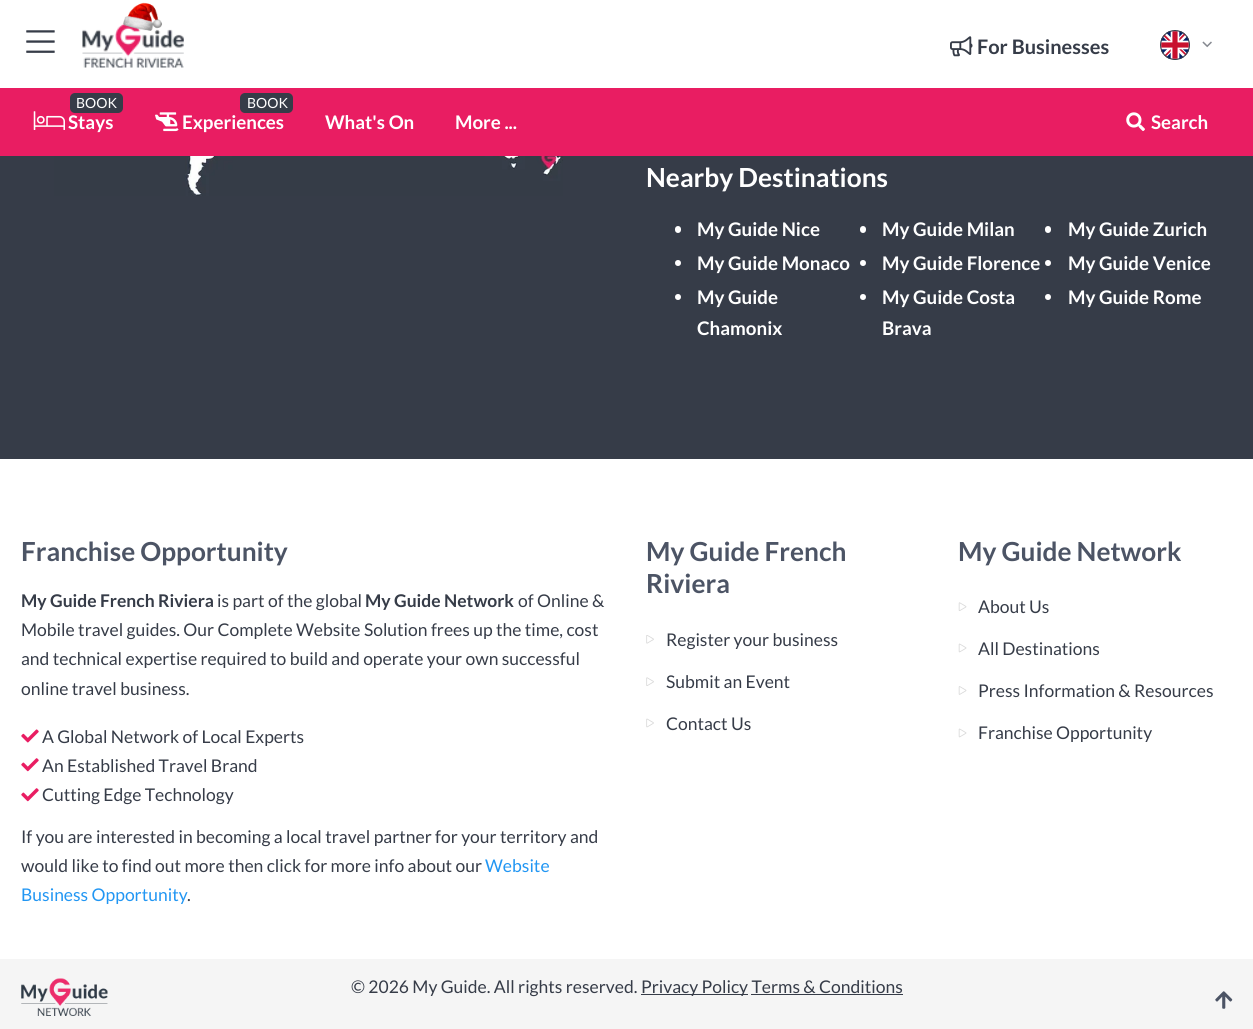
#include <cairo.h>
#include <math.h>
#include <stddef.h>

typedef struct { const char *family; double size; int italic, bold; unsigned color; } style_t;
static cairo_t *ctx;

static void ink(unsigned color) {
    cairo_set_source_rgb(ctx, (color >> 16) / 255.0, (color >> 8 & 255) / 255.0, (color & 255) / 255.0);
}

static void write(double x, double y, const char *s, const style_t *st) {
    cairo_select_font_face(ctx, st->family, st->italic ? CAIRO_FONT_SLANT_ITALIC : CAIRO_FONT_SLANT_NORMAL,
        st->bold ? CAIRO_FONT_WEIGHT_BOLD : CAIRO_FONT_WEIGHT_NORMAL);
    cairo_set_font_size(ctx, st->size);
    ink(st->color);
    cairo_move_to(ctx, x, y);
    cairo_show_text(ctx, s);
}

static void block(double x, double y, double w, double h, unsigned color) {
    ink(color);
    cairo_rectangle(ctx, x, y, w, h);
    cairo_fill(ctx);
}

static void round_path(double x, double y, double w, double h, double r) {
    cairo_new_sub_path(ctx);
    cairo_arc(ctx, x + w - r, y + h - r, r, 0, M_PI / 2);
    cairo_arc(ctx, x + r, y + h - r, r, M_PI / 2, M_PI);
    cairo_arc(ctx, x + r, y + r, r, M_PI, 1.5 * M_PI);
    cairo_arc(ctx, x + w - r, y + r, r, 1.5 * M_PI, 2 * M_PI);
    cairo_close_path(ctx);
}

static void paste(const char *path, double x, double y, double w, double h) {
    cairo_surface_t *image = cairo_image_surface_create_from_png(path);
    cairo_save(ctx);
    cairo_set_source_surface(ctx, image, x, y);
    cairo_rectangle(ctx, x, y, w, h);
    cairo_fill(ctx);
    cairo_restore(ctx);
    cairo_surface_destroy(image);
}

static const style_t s1 = {"Lato", 20, 0, 1, 0x363c48};
static const style_t s2 = {"Lato", 14, 0, 0, 0xffffff};
static const style_t s3 = {"Lato", 18.75, 0, 1, 0xffffff};
static const style_t s4 = {"Lato", 26.25, 0, 1, 0xffffff};
static const style_t s5 = {"Lato", 26.25, 0, 1, 0x4c5465};
static const style_t s6 = {"Lato", 17.5, 0, 1, 0x363c48};
static const style_t s7 = {"Lato", 17.5, 0, 0, 0x363c48};
static const style_t s8 = {"Lato", 17.5, 0, 0, 0x2196f3};

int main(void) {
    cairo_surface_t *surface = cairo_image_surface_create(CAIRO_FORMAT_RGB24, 1253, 1029);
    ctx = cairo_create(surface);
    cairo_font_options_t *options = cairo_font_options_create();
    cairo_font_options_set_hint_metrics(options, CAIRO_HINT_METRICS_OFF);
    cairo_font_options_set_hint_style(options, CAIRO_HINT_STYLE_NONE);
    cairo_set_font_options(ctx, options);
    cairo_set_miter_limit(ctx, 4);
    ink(0xffffff);
    cairo_paint(ctx);
    paste("pic1.png", 26, 30, 29, 23);
    paste("pic3.png", 82, 23, 102, 45);
    paste("pic2.png", 123, 2, 39, 29);
    paste("pic4.png", 950, 36, 23, 21);
    write(977, 54, "For Businesses", &s1);
    paste("pic5.png", 1161, 31, 28, 28);
    cairo_arc(ctx, 1175, 45, 14.5, 0, 2 * M_PI);
    cairo_set_line_width(ctx, 1);
    cairo_stroke(ctx);
    paste("pic6.png", 1202, 41, 10, 7);
    block(0, 88, 1253, 68, 0xe91d62);
    ink(0x363c48);
    round_path(70, 93, 53, 20, 5);
    cairo_fill(ctx);
    write(76, 108, "BOOK", &s2);
    paste("pic7.png", 33, 111, 32, 19);
    write(68, 129, "Stays", &s3);
    ink(0x363c48);
    round_path(240, 93, 53, 20, 5);
    cairo_fill(ctx);
    write(247, 108, "BOOK", &s2);
    paste("pic8.png", 155, 112, 24, 20);
    write(182, 129, "Experiences", &s3);
    write(325, 129, "What's On", &s3);
    write(455, 129, "More ...", &s3);
    paste("pic9.png", 1126, 112, 19, 19);
    write(1151, 129, "Search", &s3);
    block(0, 156, 1253, 303, 0x363c48);
    paste("pic10.png", 54, 156, 509, 40);
    write(646, 187, "Nearby Destinations", &s4);
    round_path(675, 226, 6, 7, 3);
    cairo_fill(ctx);
    write(697, 236, "My Guide Nice", &s3);
    round_path(860, 226, 6, 7, 3);
    cairo_fill(ctx);
    write(882, 236, "My Guide Milan", &s3);
    round_path(1045, 226, 6, 7, 3);
    cairo_fill(ctx);
    write(1068, 236, "My Guide Zurich", &s3);
    cairo_new_path(ctx);
    cairo_arc(ctx, 678, 263, 3, 0, 2 * M_PI);
    cairo_fill(ctx);
    write(697, 270, "My Guide Monaco", &s3);
    cairo_new_path(ctx);
    cairo_arc(ctx, 863, 263, 3, 0, 2 * M_PI);
    cairo_fill(ctx);
    write(882, 270, "My Guide Florence", &s3);
    cairo_new_path(ctx);
    cairo_arc(ctx, 1048, 263, 3, 0, 2 * M_PI);
    cairo_fill(ctx);
    write(1068, 270, "My Guide Venice", &s3);
    cairo_new_path(ctx);
    cairo_arc(ctx, 678, 297, 3, 0, 2 * M_PI);
    cairo_fill(ctx);
    write(697, 304, "My Guide", &s3);
    write(697, 335, "Chamonix", &s3);
    cairo_new_path(ctx);
    cairo_arc(ctx, 863, 297, 3, 0, 2 * M_PI);
    cairo_fill(ctx);
    write(882, 304, "My Guide Costa", &s3);
    write(882, 335, "Brava", &s3);
    cairo_new_path(ctx);
    cairo_arc(ctx, 1048, 297, 3, 0, 2 * M_PI);
    cairo_fill(ctx);
    write(1068, 304, "My Guide Rome", &s3);
    write(21, 561, "Franchise Opportunity", &s5);
    write(21, 607, "My Guide French Riviera", &s6);
    write(217, 607, "is part of the global", &s7);
    write(365, 607, "My Guide Network", &s6);
    write(518, 607, "of Online &", &s7);
    write(21, 636, "Mobile travel guides. Our Complete Website Solution frees up the time, cost", &s7);
    write(21, 665, "and technical expertise required to build and operate your own successful", &s7);
    write(21, 695, "online travel business.", &s7);
    paste("pic11.png", 21, 729, 18, 14);
    write(42, 743, "A Global Network of Local Experts", &s7);
    paste("pic12.png", 21, 758, 18, 14);
    write(42, 772, "An Established Travel Brand", &s7);
    paste("pic12.png", 21, 788, 18, 14);
    write(42, 801, "Cutting Edge Technology", &s7);
    write(21, 843, "If you are interested in becoming a local travel partner for your territory and", &s7);
    write(21, 872, "would like to find out more then click for more info about our", &s7);
    write(485, 872, "Website", &s8);
    write(21, 901, "Business Opportunity", &s8);
    write(187, 901, ".", &s7);
    write(646, 561, "My Guide French", &s5);
    write(646, 593, "Riviera", &s5);
    paste("pic13.png", 646, 635, 8, 9);
    write(666, 646, "Register your business", &s7);
    paste("pic14.png", 646, 677, 8, 9);
    write(666, 688, "Submit an Event", &s7);
    paste("pic15.png", 646, 718, 8, 10);
    write(666, 730, "Contact Us", &s7);
    write(958, 561, "My Guide Network", &s5);
    paste("pic16.png", 958, 602, 9, 9);
    write(978, 613, "About Us", &s7);
    paste("pic17.png", 958, 643, 9, 10);
    write(978, 655, "All Destinations", &s7);
    paste("pic18.png", 958, 686, 9, 9);
    write(978, 697, "Press Information & Resources", &s7);
    paste("pic17.png", 958, 728, 9, 10);
    write(978, 739, "Franchise Opportunity", &s7);
    block(0, 959, 1253, 70, 0xf5f5f5);
    paste("pic19.png", 21, 978, 87, 38);
    write(351, 993, "© 2026 My Guide. All rights reserved.", &s7);
    block(641, 994, 107, 1, 0x363c48);
    write(641, 993, "Privacy Policy Terms & Conditions", &s7);
    block(751, 994, 152, 1, 0x363c48);
    paste("pic20.png", 1215, 991, 18, 18);
    cairo_surface_write_to_png(surface, "screenshot.png");
    cairo_font_options_destroy(options);
    cairo_destroy(ctx);
    cairo_surface_destroy(surface);
    return 0;
}
